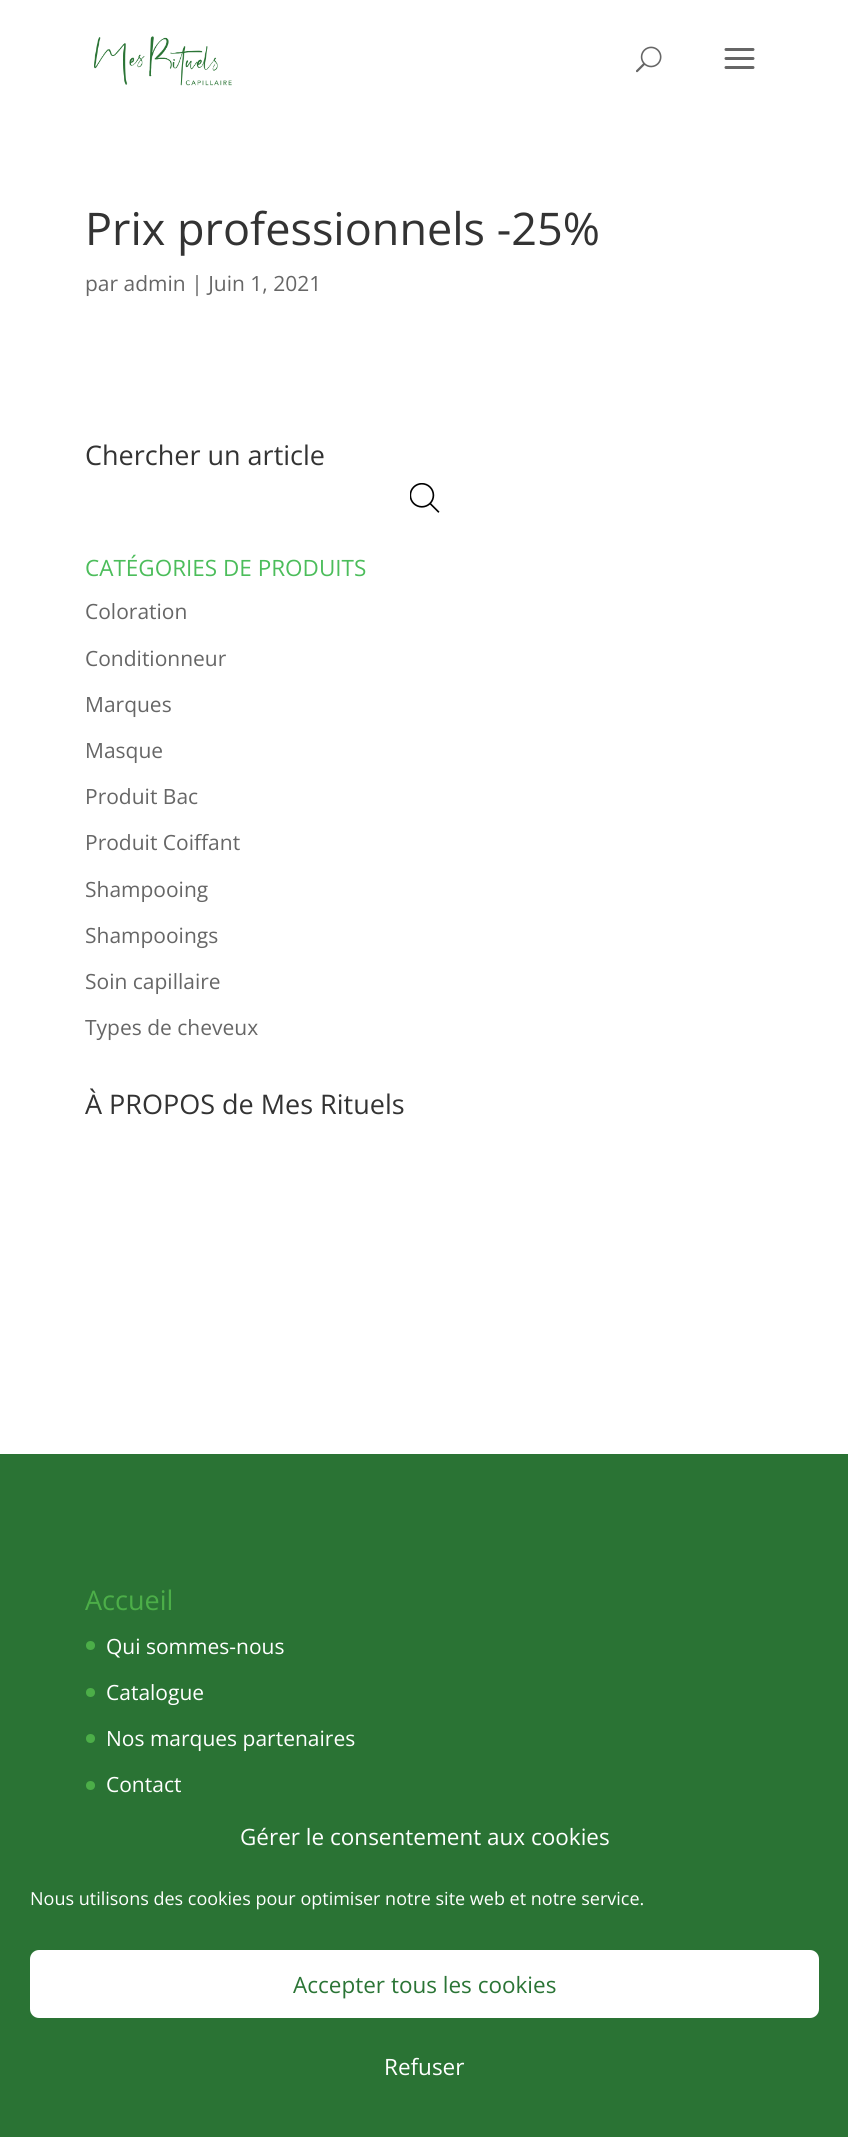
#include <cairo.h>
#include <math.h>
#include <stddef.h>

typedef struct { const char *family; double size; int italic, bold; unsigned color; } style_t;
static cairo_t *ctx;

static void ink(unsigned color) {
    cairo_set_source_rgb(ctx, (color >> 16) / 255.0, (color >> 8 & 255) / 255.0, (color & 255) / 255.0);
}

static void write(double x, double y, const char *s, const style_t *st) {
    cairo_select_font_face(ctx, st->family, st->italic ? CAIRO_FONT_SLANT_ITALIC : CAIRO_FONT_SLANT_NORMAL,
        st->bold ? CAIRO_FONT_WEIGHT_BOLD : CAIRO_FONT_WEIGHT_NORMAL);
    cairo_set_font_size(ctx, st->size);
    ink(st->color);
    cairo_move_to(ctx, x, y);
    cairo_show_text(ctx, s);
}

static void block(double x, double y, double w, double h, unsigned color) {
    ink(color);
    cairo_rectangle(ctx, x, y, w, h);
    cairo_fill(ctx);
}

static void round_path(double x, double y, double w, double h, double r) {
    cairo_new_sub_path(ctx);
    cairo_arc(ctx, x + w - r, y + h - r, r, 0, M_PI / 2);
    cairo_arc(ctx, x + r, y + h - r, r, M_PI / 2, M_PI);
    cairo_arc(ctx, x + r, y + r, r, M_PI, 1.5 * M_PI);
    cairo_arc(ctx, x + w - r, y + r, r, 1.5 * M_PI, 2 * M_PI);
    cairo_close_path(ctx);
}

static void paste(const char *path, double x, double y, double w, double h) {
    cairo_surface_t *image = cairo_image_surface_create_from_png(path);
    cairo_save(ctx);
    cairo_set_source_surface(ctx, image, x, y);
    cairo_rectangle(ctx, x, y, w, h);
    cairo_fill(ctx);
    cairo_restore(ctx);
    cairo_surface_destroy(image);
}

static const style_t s1 = {"Open Sans", 45, 0, 0, 0x333333};
static const style_t s2 = {"Open Sans", 21, 0, 0, 0x666666};
static const style_t s3 = {"Open Sans", 27, 0, 0, 0x333333};
static const style_t s4 = {"Open Sans", 22.5, 0, 0, 0x4cbd5b};
static const style_t s5 = {"Open Sans", 27, 0, 0, 0x4cae48};
static const style_t s6 = {"Open Sans", 21, 0, 0, 0xffffff};
static const style_t s7 = {"Open Sans", 22.5, 0, 0, 0xffffff};
static const style_t s8 = {"Open Sans", 18, 0, 0, 0xffffff};
static const style_t s9 = {"Open Sans", 22.5, 0, 0, 0x2a7435};

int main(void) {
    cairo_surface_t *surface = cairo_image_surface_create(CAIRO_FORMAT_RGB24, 848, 2137);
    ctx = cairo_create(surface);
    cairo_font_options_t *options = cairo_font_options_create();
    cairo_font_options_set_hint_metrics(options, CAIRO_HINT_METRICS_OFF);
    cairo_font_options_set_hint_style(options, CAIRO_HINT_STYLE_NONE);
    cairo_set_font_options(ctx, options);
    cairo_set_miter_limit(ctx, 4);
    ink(0xffffff);
    cairo_paint(ctx);
    paste("pic1.png", 94, 36, 138, 50);
    paste("pic2.png", 636, 46, 26, 27);
    paste("pic3.png", 724, 48, 31, 21);
    write(85, 245, "Prix professionnels -25%", &s1);
    write(85, 291, "par admin | Juin 1, 2021", &s2);
    write(85, 465, "Chercher un article", &s3);
    paste("pic4.png", 410, 483, 30, 30);
    write(85, 576, "CATÉGORIES DE PRODUITS", &s4);
    write(85, 619, "Coloration", &s2);
    write(85, 666, "Conditionneur", &s2);
    write(85, 712, "Marques", &s2);
    write(85, 758, "Masque", &s2);
    write(85, 804, "Produit Bac", &s2);
    write(85, 850, "Produit Coiffant", &s2);
    write(85, 897, "Shampooing", &s2);
    write(85, 943, "Shampooings", &s2);
    write(85, 989, "Soin capillaire", &s2);
    write(85, 1035, "Types de cheveux", &s2);
    write(85, 1114, "À PROPOS de Mes Rituels", &s3);
    block(0, 1454, 848, 683, 0x2a7334);
    write(85, 1610, "Accueil", &s5);
    cairo_new_path(ctx);
    cairo_arc(ctx, 90.5, 1645.5, 4.5, 0, 2 * M_PI);
    cairo_fill(ctx);
    write(106, 1654, "Qui sommes-nous", &s6);
    ink(0x4cae48);
    cairo_new_path(ctx);
    cairo_arc(ctx, 90.5, 1692.5, 4.5, 0, 2 * M_PI);
    cairo_fill(ctx);
    write(106, 1700, "Catalogue", &s6);
    ink(0x4cae48);
    cairo_new_path(ctx);
    cairo_arc(ctx, 90.5, 1738.5, 4.5, 0, 2 * M_PI);
    cairo_fill(ctx);
    write(106, 1746, "Nos marques partenaires", &s6);
    ink(0x4cae48);
    cairo_new_path(ctx);
    cairo_arc(ctx, 90.5, 1785.5, 4.5, 0, 2 * M_PI);
    cairo_fill(ctx);
    write(106, 1792, "Contact", &s6);
    write(240, 1845, "Gérer le consentement aux cookies", &s7);
    write(30, 1905, "Nous utilisons des cookies pour optimiser notre site web et notre service.", &s8);
    round_path(31, 1951, 787, 66, 8);
    cairo_fill_preserve(ctx);
    cairo_stroke(ctx);
    write(293, 1993, "Accepter tous les cookies", &s9);
    write(384, 2075, "Refuser", &s7);
    cairo_surface_write_to_png(surface, "screenshot.png");
    cairo_font_options_destroy(options);
    cairo_destroy(ctx);
    cairo_surface_destroy(surface);
    return 0;
}
